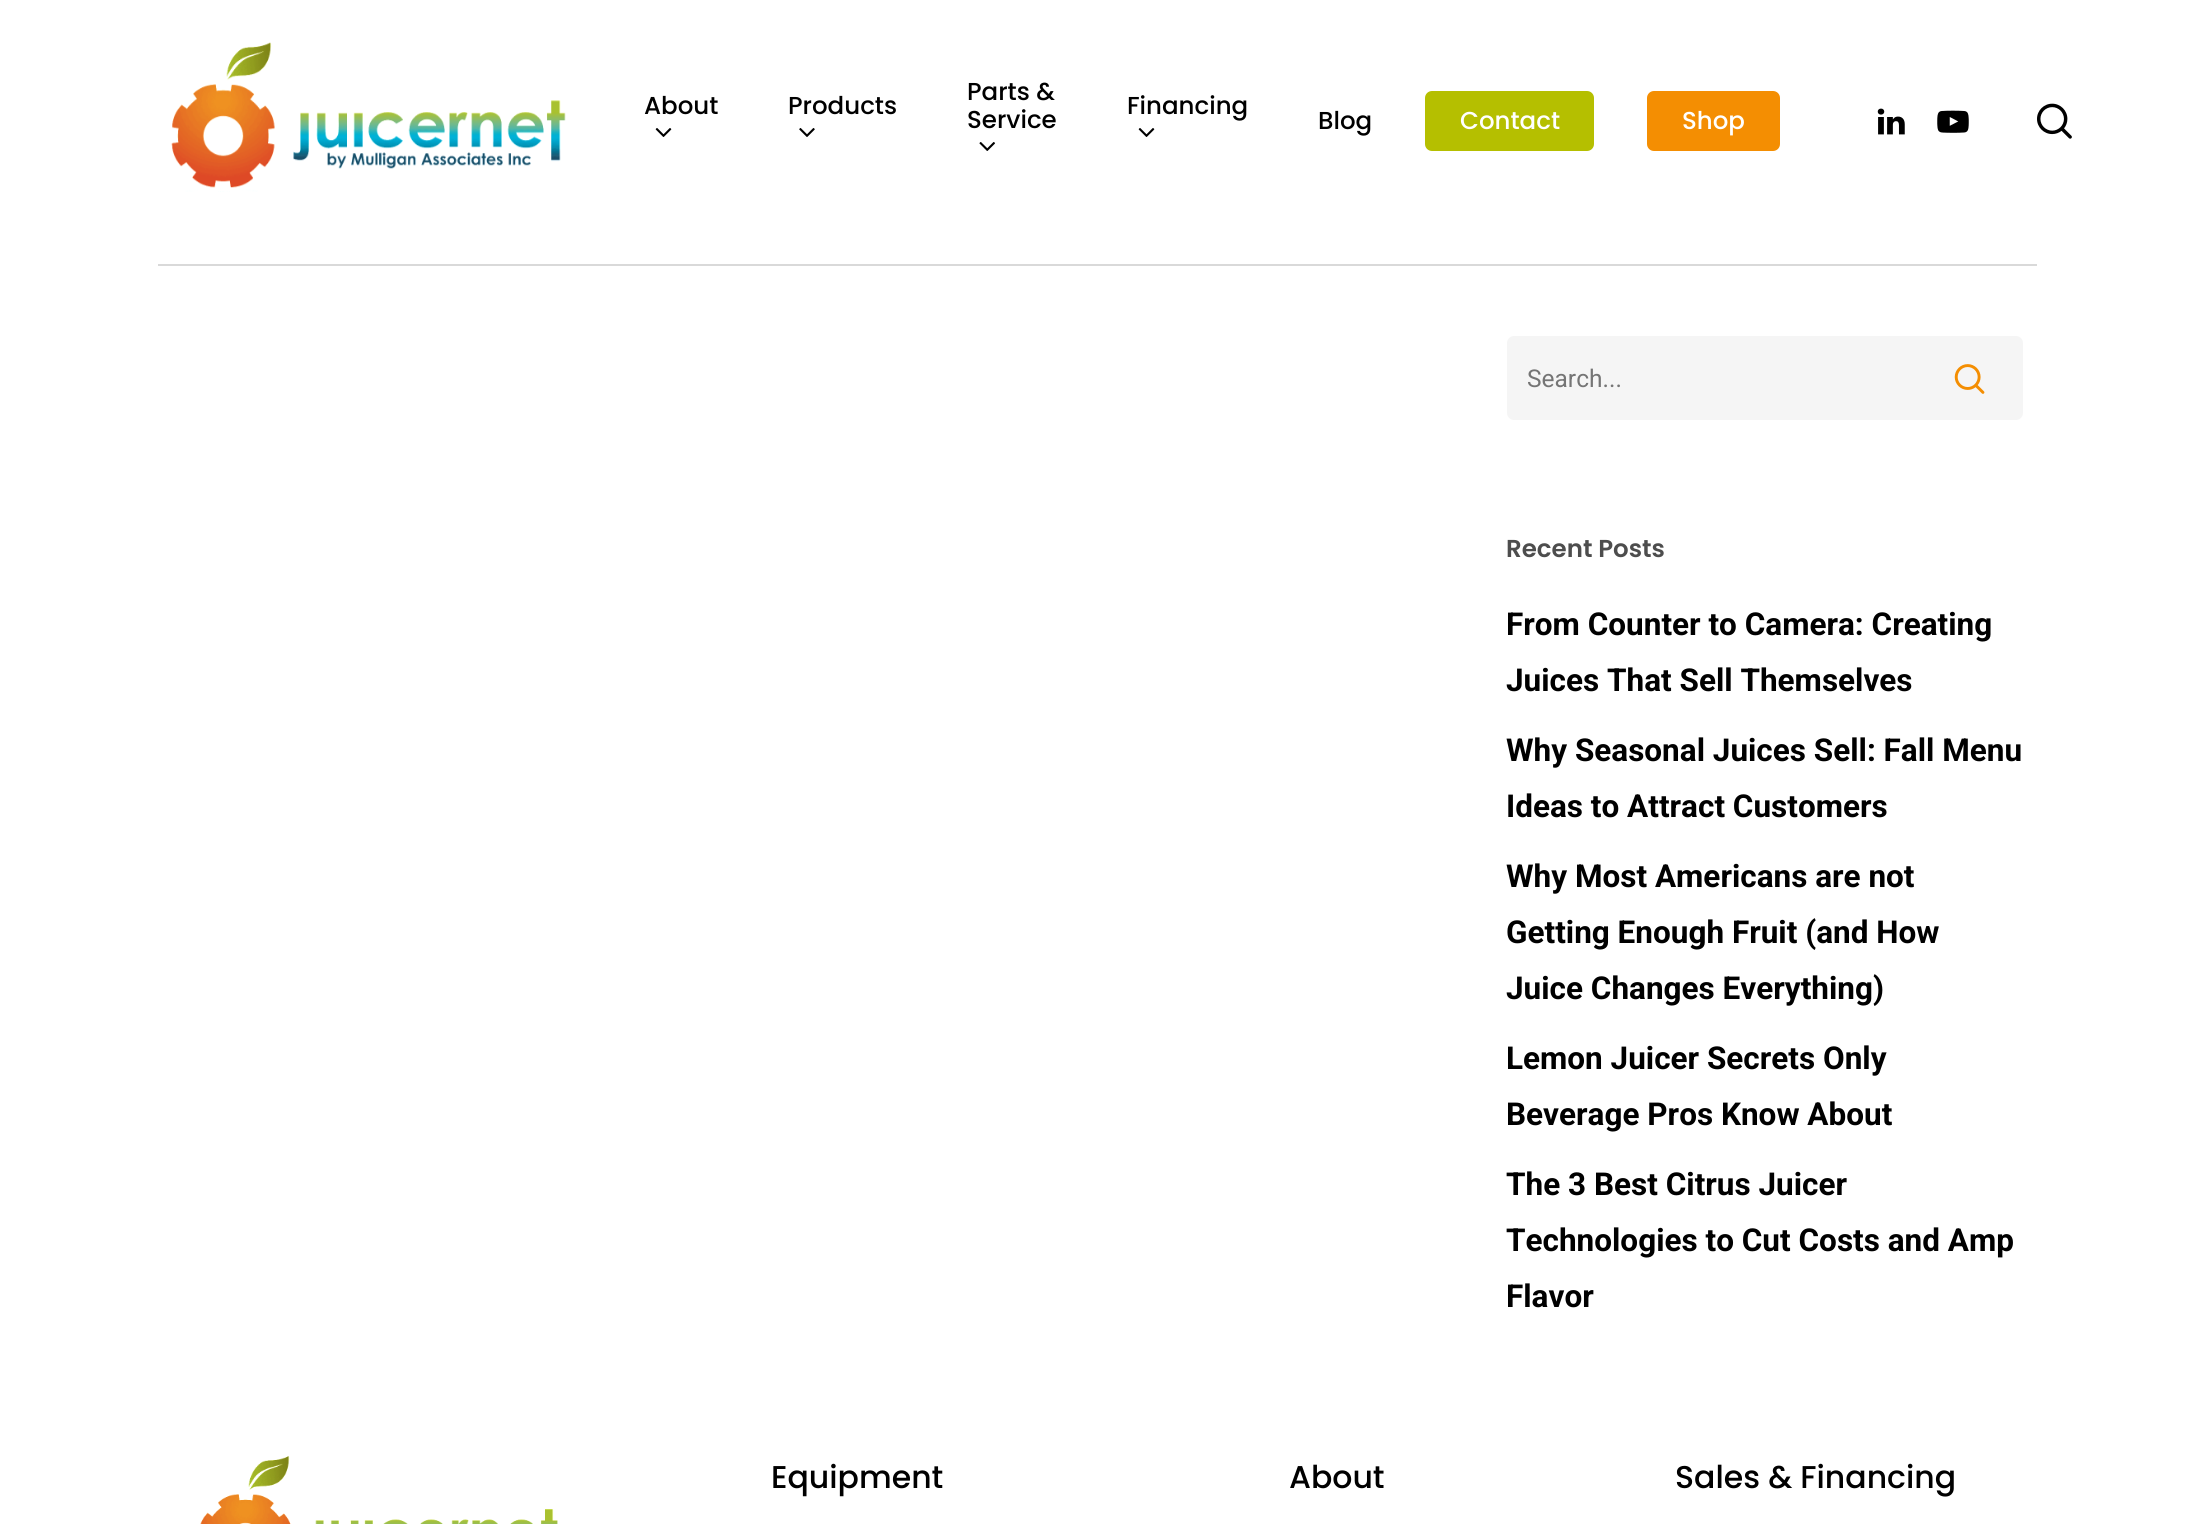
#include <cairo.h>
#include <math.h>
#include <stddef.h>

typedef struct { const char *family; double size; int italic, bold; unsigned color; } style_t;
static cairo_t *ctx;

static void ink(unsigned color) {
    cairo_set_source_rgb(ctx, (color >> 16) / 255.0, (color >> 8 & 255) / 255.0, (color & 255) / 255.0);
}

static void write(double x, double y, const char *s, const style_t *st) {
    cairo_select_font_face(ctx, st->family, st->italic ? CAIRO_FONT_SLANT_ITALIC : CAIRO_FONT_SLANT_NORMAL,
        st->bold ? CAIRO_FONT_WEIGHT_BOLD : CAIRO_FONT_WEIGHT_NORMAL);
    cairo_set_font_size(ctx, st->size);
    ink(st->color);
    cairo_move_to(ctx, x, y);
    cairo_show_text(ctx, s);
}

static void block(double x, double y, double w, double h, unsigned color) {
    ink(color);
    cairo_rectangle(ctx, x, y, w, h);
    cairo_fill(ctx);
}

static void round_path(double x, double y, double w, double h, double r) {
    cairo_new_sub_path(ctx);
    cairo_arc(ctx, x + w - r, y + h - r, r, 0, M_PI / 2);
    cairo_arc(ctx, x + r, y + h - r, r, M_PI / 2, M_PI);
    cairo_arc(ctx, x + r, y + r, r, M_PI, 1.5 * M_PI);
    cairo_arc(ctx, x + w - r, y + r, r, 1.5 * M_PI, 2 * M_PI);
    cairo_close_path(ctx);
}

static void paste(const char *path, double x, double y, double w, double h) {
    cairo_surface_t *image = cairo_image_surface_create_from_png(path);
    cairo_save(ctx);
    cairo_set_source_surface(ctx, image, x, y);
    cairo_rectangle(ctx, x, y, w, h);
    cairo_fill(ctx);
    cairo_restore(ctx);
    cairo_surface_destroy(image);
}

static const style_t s1 = {"Poppins Medium", 24.5, 0, 0, 0x000000};
static const style_t s2 = {"Poppins Medium", 24.5, 0, 0, 0xffffff};
static const style_t s3 = {"Roboto", 24.5, 0, 0, 0x757575};
static const style_t s4 = {"Poppins SemiBold", 24.5, 0, 0, 0x4d4d4d};
static const style_t s5 = {"Roboto", 31.5, 0, 1, 0x000000};
static const style_t s6 = {"Poppins Medium", 31.5, 0, 0, 0x000000};

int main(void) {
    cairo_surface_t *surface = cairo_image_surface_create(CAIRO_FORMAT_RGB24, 2193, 1524);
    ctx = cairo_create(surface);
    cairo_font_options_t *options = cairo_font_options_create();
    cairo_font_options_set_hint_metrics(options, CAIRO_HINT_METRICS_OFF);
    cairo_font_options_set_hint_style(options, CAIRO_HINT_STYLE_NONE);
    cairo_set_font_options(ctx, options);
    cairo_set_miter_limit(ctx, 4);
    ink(0xffffff);
    cairo_paint(ctx);
    paste("pic1.png", 171, 42, 395, 150);
    write(644, 114, "About", &s1);
    paste("pic2.png", 655, 128, 17, 9);
    write(788, 114, "Products", &s1);
    paste("pic3.png", 799, 128, 16, 9);
    write(967, 100, "Parts &", &s1);
    write(967, 128, "Service", &s1);
    paste("pic4.png", 979, 142, 16, 9);
    write(1127, 114, "Financing", &s1);
    paste("pic2.png", 1138, 128, 17, 9);
    write(1318, 129, "Blog", &s1);
    ink(0xb5bf00);
    round_path(1425, 91, 169, 60, 7);
    cairo_fill(ctx);
    write(1460, 129, "Contact", &s2);
    ink(0xf48e02);
    round_path(1647, 91, 133, 60, 7);
    cairo_fill(ctx);
    write(1682, 129, "Shop", &s2);
    paste("pic5.png", 1877, 108, 28, 27);
    paste("pic6.png", 1937, 110, 32, 23);
    paste("pic7.png", 2037, 103, 35, 36);
    block(158, 264, 1879, 2, 0xd9d9d9);
    ink(0xf5f5f5);
    round_path(1507, 336, 516, 84, 7);
    cairo_fill(ctx);
    write(1527, 387, "Search...", &s3);
    paste("pic8.png", 1954, 364, 31, 30);
    write(1506, 557, "Recent Posts", &s4);
    write(1506, 635, "From Counter to Camera: Creating", &s5);
    write(1506, 691, "Juices That Sell Themselves", &s5);
    write(1506, 761, "Why Seasonal Juices Sell: Fall Menu", &s5);
    write(1506, 817, "Ideas to Attract Customers", &s5);
    write(1506, 887, "Why Most Americans are not", &s5);
    write(1506, 943, "Getting Enough Fruit (and How", &s5);
    write(1506, 999, "Juice Changes Everything)", &s5);
    write(1506, 1069, "Lemon Juicer Secrets Only", &s5);
    write(1506, 1125, "Beverage Pros Know About", &s5);
    write(1506, 1195, "The 3 Best Citrus Juicer", &s5);
    write(1506, 1251, "Technologies to Cut Costs and Amp", &s5);
    write(1506, 1307, "Flavor", &s5);
    paste("pic9.png", 200, 1455, 358, 69);
    write(771, 1488, "Equipment", &s6);
    write(1289, 1488, "About", &s6);
    write(1675, 1488, "Sales & Financing", &s6);
    cairo_surface_write_to_png(surface, "screenshot.png");
    cairo_font_options_destroy(options);
    cairo_destroy(ctx);
    cairo_surface_destroy(surface);
    return 0;
}
